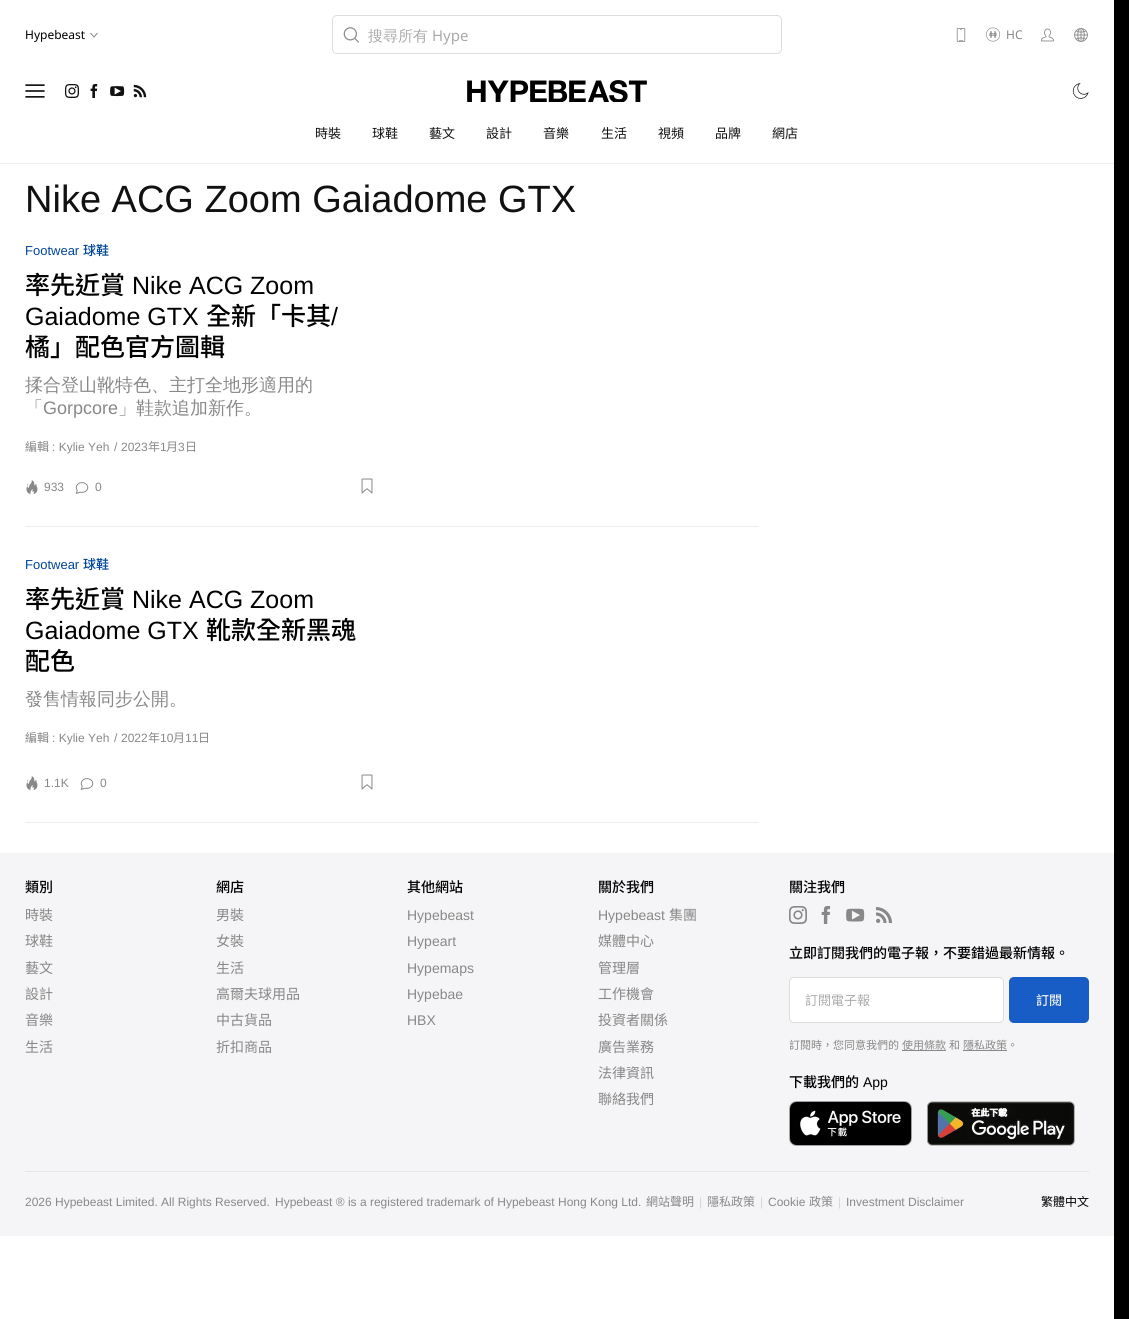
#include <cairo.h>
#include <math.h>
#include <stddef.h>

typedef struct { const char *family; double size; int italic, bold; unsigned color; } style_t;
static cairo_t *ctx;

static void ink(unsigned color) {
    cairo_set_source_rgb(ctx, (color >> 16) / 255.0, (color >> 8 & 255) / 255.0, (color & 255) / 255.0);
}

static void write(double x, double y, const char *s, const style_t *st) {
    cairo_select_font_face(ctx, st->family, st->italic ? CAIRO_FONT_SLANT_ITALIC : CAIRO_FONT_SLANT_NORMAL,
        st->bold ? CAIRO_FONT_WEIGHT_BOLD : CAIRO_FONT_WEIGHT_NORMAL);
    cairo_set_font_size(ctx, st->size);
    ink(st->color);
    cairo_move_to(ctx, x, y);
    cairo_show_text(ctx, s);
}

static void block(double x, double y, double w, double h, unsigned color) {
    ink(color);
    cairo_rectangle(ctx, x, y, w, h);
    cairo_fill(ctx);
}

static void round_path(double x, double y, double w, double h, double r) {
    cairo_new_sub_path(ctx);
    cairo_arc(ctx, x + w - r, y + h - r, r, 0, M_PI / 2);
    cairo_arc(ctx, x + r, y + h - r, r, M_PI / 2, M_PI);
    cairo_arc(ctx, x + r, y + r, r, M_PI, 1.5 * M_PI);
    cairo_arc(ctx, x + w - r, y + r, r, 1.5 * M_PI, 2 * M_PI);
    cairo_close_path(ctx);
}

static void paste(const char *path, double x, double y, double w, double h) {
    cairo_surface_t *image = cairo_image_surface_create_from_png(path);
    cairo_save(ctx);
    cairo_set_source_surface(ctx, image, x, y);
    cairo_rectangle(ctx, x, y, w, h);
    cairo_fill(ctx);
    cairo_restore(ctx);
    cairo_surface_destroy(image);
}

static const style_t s1 = {"Noto Sans", 12, 0, 0, 0x000000};
static const style_t s2 = {"WenQuanYi Zen Hei Medium", 15, 0, 0, 0xaaaaaa};
static const style_t s3 = {"Noto Sans", 15, 0, 0, 0xaaaaaa};
static const style_t s4 = {"Noto Sans", 12, 0, 0, 0x888888};
static const style_t s5 = {"Noto Sans TC", 13, 0, 0, 0x111111};
static const style_t s6 = {"Liberation Sans", 38, 0, 0, 0x111111};
static const style_t s7 = {"Liberation Sans", 13, 0, 0, 0x00469b};
static const style_t s8 = {"Noto Sans TC Medium", 13, 0, 0, 0x00469b};
static const style_t s9 = {"Noto Sans TC Medium", 25, 0, 0, 0x000000};
static const style_t s10 = {"Liberation Sans", 25, 0, 0, 0x000000};
static const style_t s11 = {"WenQuanYi Zen Hei Medium", 18, 0, 0, 0x888888};
static const style_t s12 = {"Liberation Sans", 18, 0, 0, 0x888888};
static const style_t s13 = {"Noto Sans TC", 12, 0, 0, 0x888888};
static const style_t s14 = {"Liberation Sans", 12, 0, 0, 0x888888};
static const style_t s15 = {"Noto Sans TC Medium", 14, 0, 0, 0x000000};
static const style_t s16 = {"Noto Sans TC", 14, 0, 0, 0x888888};
static const style_t s17 = {"Liberation Sans", 14, 0, 0, 0x888888};
static const style_t s18 = {"Noto Sans TC", 13, 0, 0, 0xaaaaaa};
static const style_t s19 = {"Noto Sans TC Medium", 13, 0, 0, 0xeeeeee};
static const style_t s20 = {"Noto Sans TC", 11, 0, 0, 0x888888};
static const style_t s21 = {"Liberation Sans", 14, 0, 0, 0x000000};
static const style_t s22 = {"Liberation Sans", 12, 0, 0, 0xd7d7d7};
static const style_t s23 = {"Noto Sans TC", 12, 0, 0, 0x000000};

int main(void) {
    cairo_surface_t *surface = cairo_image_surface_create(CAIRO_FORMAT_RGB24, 1129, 1319);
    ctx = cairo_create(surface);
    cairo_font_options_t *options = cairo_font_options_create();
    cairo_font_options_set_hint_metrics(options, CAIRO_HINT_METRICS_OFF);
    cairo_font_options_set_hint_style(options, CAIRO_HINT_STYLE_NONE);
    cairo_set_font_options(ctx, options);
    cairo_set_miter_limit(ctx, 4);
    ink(0x000000);
    cairo_paint(ctx);
    block(0, 0, 1114, 1319, 0xffffff);
    block(0, 163, 1114, 1, 0xeeeeee);
    write(25, 39, "Hypebeast", &s1);
    cairo_new_path(ctx);
    cairo_move_to(ctx, 97.5, 33);
    cairo_line_to(ctx, 94, 37);
    cairo_line_to(ctx, 90.5, 33);
    ink(0x888888);
    cairo_set_line_width(ctx, 1);
    cairo_stroke(ctx);
    round_path(332.5, 15.5, 449, 38, 4.5);
    ink(0xdddddd);
    cairo_stroke(ctx);
    paste("pic1.png", 343, 27, 16, 16);
    write(368, 41, "搜尋所有", &s2);
    write(432, 41, "Hype", &s3);
    paste("pic2.png", 956, 28, 10, 14);
    paste("pic3.png", 986, 27, 15, 15);
    write(1006, 39, "HC", &s4);
    paste("pic4.png", 1040, 28, 15, 14);
    paste("pic5.png", 1074, 28, 14, 14);
    paste("pic6.png", 25, 84, 20, 14);
    paste("pic7.png", 65, 84, 14, 14);
    paste("pic8.png", 90, 84, 8, 14);
    paste("pic9.png", 110, 86, 15, 11);
    paste("pic10.png", 133, 84, 14, 14);
    paste("pic11.png", 467, 80, 180, 22);
    paste("pic12.png", 1072, 83, 17, 16);
    write(315, 138, "時裝", &s5);
    write(372, 138, "球鞋", &s5);
    write(429, 138, "藝文", &s5);
    write(486, 138, "設計", &s5);
    write(543, 138, "音樂", &s5);
    write(601, 138, "生活", &s5);
    write(658, 138, "視頻", &s5);
    write(715, 138, "品牌", &s5);
    write(772, 138, "網店", &s5);
    write(25, 212, "Nike ACG Zoom Gaiadome GTX", &s6);
    write(25, 255, "Footwear", &s7);
    write(83, 255, "球鞋", &s8);
    write(25, 294, "率先近賞", &s9);
    write(132, 294, "Nike ACG Zoom", &s10);
    write(25, 325, "Gaiadome GTX", &s10);
    write(206, 325, "全新「卡其", &s9);
    write(331, 325, "/", &s10);
    write(25, 356, "橘」配色官方圖輯", &s9);
    write(25, 391, "揉合登山靴特色、主打全地形適用的", &s11);
    write(25, 414, "「", &s11);
    write(43, 414, "Gorpcore", &s12);
    write(118, 414, "」鞋款追加新作。", &s11);
    write(25, 451, "編輯", &s13);
    write(52, 451, ": Kylie Yeh", &s14);
    write(114, 451, "/", &s14);
    write(121, 451, "2023", &s14);
    write(148, 451, "年", &s13);
    write(160, 451, "1", &s14);
    write(166, 451, "月", &s13);
    write(178, 451, "3", &s14);
    write(185, 451, "日", &s13);
    paste("pic13.png", 26, 480, 12, 15);
    write(44, 491, "933", &s14);
    paste("pic14.png", 75, 482, 14, 12);
    write(95, 491, "0", &s14);
    paste("pic15.png", 361, 478, 12, 16);
    block(25, 526, 734, 1, 0xeeeeee);
    write(25, 569, "Footwear", &s7);
    write(83, 569, "球鞋", &s8);
    write(25, 608, "率先近賞", &s9);
    write(132, 608, "Nike ACG Zoom", &s10);
    write(25, 639, "Gaiadome GTX", &s10);
    write(206, 639, "靴款全新黑魂", &s9);
    write(25, 670, "配色", &s9);
    write(25, 705, "發售情報同步公開。", &s11);
    write(25, 742, "編輯", &s13);
    write(52, 742, ": Kylie Yeh", &s14);
    write(114, 742, "/", &s14);
    write(121, 742, "2022", &s14);
    write(148, 742, "年", &s13);
    write(160, 742, "10", &s14);
    write(173, 742, "月", &s13);
    write(185, 742, "11", &s14);
    write(198, 742, "日", &s13);
    paste("pic13.png", 26, 776, 12, 15);
    write(44, 787, "1.1K", &s14);
    paste("pic14.png", 80, 778, 14, 12);
    write(100, 787, "0", &s14);
    paste("pic15.png", 361, 774, 12, 16);
    block(25, 822, 734, 1, 0xeeeeee);
    block(0, 853, 1114, 383, 0xf5f5f7);
    write(25, 892, "類別", &s15);
    write(25, 920, "時裝", &s16);
    write(25, 946, "球鞋", &s16);
    write(25, 973, "藝文", &s16);
    write(25, 999, "設計", &s16);
    write(25, 1025, "音樂", &s16);
    write(25, 1052, "生活", &s16);
    write(216, 892, "網店", &s15);
    write(216, 920, "男裝", &s16);
    write(216, 946, "女裝", &s16);
    write(216, 973, "生活", &s16);
    write(216, 999, "高爾夫球用品", &s16);
    write(216, 1025, "中古貨品", &s16);
    write(216, 1052, "折扣商品", &s16);
    write(407, 892, "其他網站", &s15);
    write(407, 920, "Hypebeast", &s17);
    write(407, 946, "Hypeart", &s17);
    write(407, 973, "Hypemaps", &s17);
    write(407, 999, "Hypebae", &s17);
    write(407, 1025, "HBX", &s17);
    write(598, 892, "關於我們", &s15);
    write(598, 920, "Hypebeast", &s17);
    write(669, 920, "集團", &s16);
    write(598, 946, "媒體中心", &s16);
    write(598, 973, "管理層", &s16);
    write(598, 999, "工作機會", &s16);
    write(598, 1025, "投資者關係", &s16);
    write(598, 1052, "廣告業務", &s16);
    write(598, 1078, "法律資訊", &s16);
    write(598, 1104, "聯絡我們", &s16);
    write(789, 892, "關注我們", &s15);
    paste("pic16.png", 789, 906, 18, 18);
    paste("pic17.png", 821, 906, 10, 18);
    paste("pic18.png", 846, 908, 19, 14);
    paste("pic19.png", 876, 907, 16, 16);
    write(789, 958, "立即訂閱我們的電子報，不要錯過最新情報。", &s15);
    ink(0xffffff);
    round_path(789.5, 977.5, 214, 45, 4.5);
    cairo_fill_preserve(ctx);
    ink(0xdddddd);
    cairo_stroke(ctx);
    write(805, 1005, "訂閱電子報", &s18);
    ink(0x185dc5);
    round_path(1009, 977, 80, 46, 5);
    cairo_fill(ctx);
    write(1036, 1005, "訂閱", &s19);
    write(789, 1049, "訂閱時，您同意我們的", &s20);
    write(902, 1049, "使用條款", &s20);
    block(902, 1050, 44, 1, 0x888888);
    write(949, 1049, "和", &s20);
    write(963, 1049, "隱私政策。", &s20);
    block(963, 1050, 44, 1, 0x888888);
    write(789, 1087, "下載我們的", &s15);
    write(863, 1087, "App", &s21);
    paste("pic20.png", 789, 1101, 123, 45);
    paste("pic21.png", 927, 1101, 148, 45);
    block(25, 1171, 1064, 1, 0xe6e6e6);
    write(25, 1206, "2026 Hypebeast Limited. All Rights Reserved.", &s14);
    write(275, 1206, "Hypebeast ® is a registered trademark of Hypebeast Hong Kong Ltd.", &s14);
    write(646, 1206, "網站聲明", &s13);
    write(699, 1206, "|", &s22);
    write(707, 1206, "隱私政策", &s13);
    write(760, 1206, "|", &s22);
    write(768, 1206, "Cookie", &s14);
    write(809, 1206, "政策", &s13);
    write(838, 1206, "|", &s22);
    write(846, 1206, "Investment Disclaimer", &s14);
    write(1041, 1206, "繁體中文", &s23);
    cairo_surface_write_to_png(surface, "screenshot.png");
    cairo_font_options_destroy(options);
    cairo_destroy(ctx);
    cairo_surface_destroy(surface);
    return 0;
}
